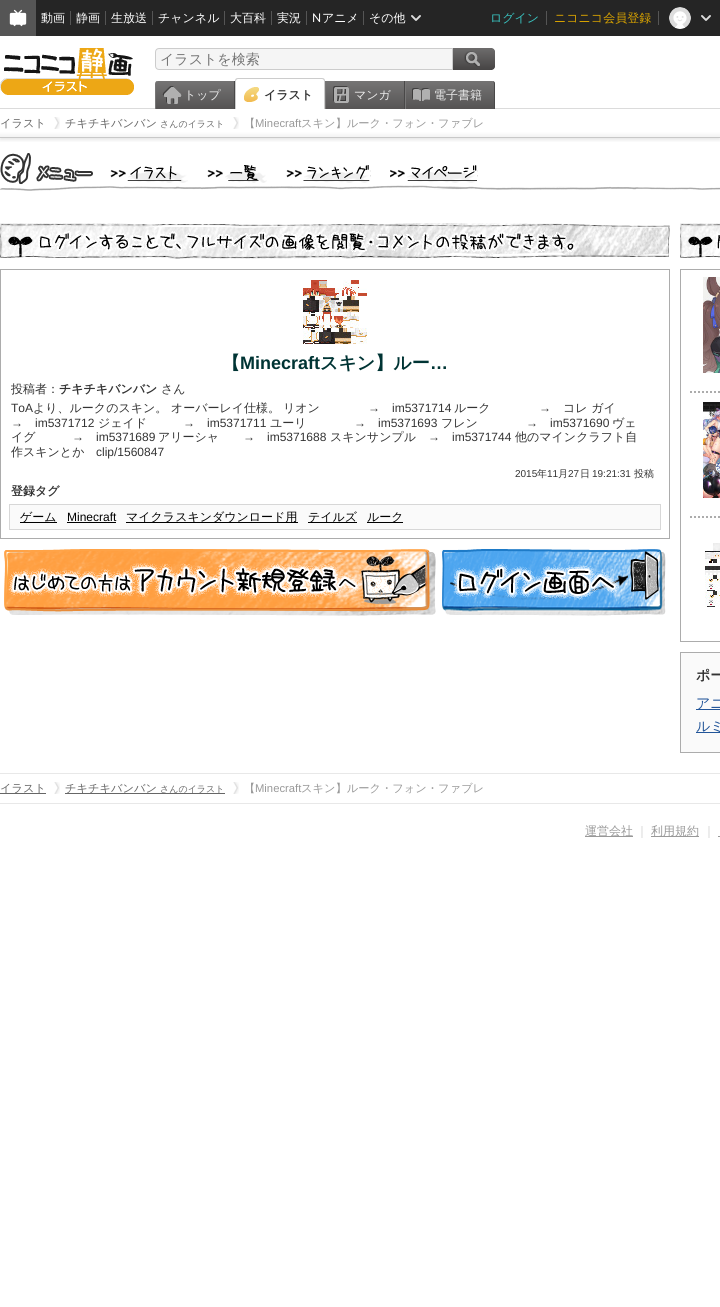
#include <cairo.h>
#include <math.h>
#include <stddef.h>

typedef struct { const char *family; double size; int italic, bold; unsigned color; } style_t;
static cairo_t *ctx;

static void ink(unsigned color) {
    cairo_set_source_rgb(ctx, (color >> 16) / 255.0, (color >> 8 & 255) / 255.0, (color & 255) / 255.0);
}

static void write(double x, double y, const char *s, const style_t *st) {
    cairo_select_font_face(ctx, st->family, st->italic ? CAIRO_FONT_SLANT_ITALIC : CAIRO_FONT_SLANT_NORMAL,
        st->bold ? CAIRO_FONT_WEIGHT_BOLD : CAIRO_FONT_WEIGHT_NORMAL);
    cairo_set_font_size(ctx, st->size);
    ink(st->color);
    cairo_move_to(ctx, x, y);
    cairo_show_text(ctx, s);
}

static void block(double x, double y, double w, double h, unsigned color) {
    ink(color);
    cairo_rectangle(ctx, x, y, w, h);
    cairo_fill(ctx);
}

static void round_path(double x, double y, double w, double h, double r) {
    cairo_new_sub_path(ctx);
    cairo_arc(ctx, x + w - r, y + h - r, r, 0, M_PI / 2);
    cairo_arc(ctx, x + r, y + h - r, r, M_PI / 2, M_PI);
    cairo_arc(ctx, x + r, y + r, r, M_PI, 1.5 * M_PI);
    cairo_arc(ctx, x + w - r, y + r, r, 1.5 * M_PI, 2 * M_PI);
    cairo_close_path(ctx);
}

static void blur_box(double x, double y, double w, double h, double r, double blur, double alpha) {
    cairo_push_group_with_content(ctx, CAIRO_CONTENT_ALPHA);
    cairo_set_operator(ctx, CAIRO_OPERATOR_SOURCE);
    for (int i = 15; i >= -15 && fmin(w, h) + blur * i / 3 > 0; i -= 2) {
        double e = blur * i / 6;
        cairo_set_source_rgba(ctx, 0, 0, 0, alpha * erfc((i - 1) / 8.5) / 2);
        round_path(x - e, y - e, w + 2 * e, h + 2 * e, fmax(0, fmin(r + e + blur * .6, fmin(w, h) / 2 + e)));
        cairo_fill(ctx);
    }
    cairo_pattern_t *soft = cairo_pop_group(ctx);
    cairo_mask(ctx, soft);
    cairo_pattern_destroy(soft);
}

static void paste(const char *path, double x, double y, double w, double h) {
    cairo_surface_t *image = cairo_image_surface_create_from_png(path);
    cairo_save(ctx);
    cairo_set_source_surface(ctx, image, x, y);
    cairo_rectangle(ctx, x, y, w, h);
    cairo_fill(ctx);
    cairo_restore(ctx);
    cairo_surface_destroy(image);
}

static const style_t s1 = {"WenQuanYi Zen Hei Medium", 12, 0, 0, 0xffffff};
static const style_t s2 = {"Lato", 12, 0, 0, 0xffffff};
static const style_t s3 = {"WenQuanYi Zen Hei Medium", 12, 0, 0, 0x39c4c1};
static const style_t s4 = {"WenQuanYi Zen Hei Medium", 12, 0, 0, 0xd9a300};
static const style_t s5 = {"WenQuanYi Zen Hei Medium", 14, 0, 0, 0x757575};
static const style_t s6 = {"WenQuanYi Zen Hei Medium", 12, 0, 0, 0xebebeb};
static const style_t s7 = {"WenQuanYi Zen Hei", 12, 0, 1, 0x333333};
static const style_t s8 = {"WenQuanYi Zen Hei Medium", 11.25, 0, 0, 0x666666};
static const style_t s9 = {"WenQuanYi Zen Hei Medium", 9, 0, 0, 0x666666};
static const style_t s10 = {"WenQuanYi Zen Hei Medium", 11.25, 0, 0, 0x999999};
static const style_t s11 = {"Liberation Sans", 11.25, 0, 0, 0x999999};
static const style_t s12 = {"WenQuanYi Zen Hei", 18, 0, 1, 0x003434};
static const style_t s13 = {"Liberation Sans", 18, 0, 1, 0x003434};
static const style_t s14 = {"WenQuanYi Zen Hei Medium", 12, 0, 0, 0x333333};
static const style_t s15 = {"Liberation Sans", 12, 0, 0, 0x333333};
static const style_t s16 = {"Liberation Sans", 10, 0, 0, 0x333333};
static const style_t s17 = {"WenQuanYi Zen Hei Medium", 10, 0, 0, 0x333333};
static const style_t s18 = {"WenQuanYi Zen Hei Medium", 12, 0, 0, 0x000000};
static const style_t s19 = {"Liberation Sans", 12, 0, 0, 0x000000};
static const style_t s20 = {"WenQuanYi Zen Hei", 14, 0, 1, 0x333333};
static const style_t s21 = {"WenQuanYi Zen Hei Medium", 14, 0, 0, 0x225599};
static const style_t s22 = {"WenQuanYi Zen Hei Medium", 12, 0, 0, 0x999999};
static const style_t s23 = {"WenQuanYi Zen Hei Medium", 12, 0, 0, 0xcccccc};

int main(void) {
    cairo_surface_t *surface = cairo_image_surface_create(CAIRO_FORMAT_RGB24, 720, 1307);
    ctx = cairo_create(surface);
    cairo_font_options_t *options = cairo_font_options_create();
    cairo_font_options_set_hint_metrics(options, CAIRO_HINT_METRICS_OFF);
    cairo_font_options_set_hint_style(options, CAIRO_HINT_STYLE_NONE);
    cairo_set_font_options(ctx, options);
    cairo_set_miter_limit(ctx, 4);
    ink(0xffffff);
    cairo_paint(ctx);
    cairo_save(ctx);
    cairo_rectangle(ctx, 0, 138, 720, 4);
    cairo_clip(ctx);
    ink(0x000000);
    blur_box(0, 38, 720, 102, 0, 2, 0.1);
    cairo_restore(ctx);
    block(36, 0, 684, 36, 0x252525);
    block(0, 0, 36, 36, 0x555555);
    paste("pic1.png", 9, 9, 18, 18);
    write(41, 22, "動画", &s1);
    block(70, 11, 1, 14, 0x555555);
    write(76, 22, "静画", &s1);
    block(105, 11, 1, 14, 0x555555);
    write(111, 22, "生放送", &s1);
    block(152, 11, 1, 14, 0x555555);
    write(158, 22, "チャンネル", &s1);
    block(224, 11, 1, 14, 0x555555);
    write(230, 22, "大百科", &s1);
    block(271, 11, 1, 14, 0x555555);
    write(277, 22, "実況", &s1);
    block(306, 11, 1, 14, 0x555555);
    write(312, 22, "N", &s2);
    write(322, 22, "アニメ", &s1);
    block(363, 11, 1, 14, 0x555555);
    write(369, 22, "その他", &s1);
    paste("pic2.png", 411, 15, 10, 6);
    write(490, 22, "ログイン", &s3);
    block(546, 11, 1, 14, 0x555555);
    write(554, 22, "ニコニコ会員登録", &s4);
    block(658, 11, 1, 14, 0x555555);
    paste("pic3.png", 669, 7, 22, 22);
    paste("pic2.png", 701, 15, 10, 6);
    paste("pic4.png", 0, 108, 720, 30);
    paste("pic5.png", 0, 48, 134, 47);
    ink(0xf5f5f5);
    cairo_new_path(ctx);
    cairo_move_to(ctx, 159, 48.5);
    cairo_line_to(ctx, 452.5, 48.5);
    cairo_line_to(ctx, 452.5, 69.5);
    cairo_line_to(ctx, 159, 69.5);
    cairo_curve_to(ctx, 157, 69.5, 155.5, 68, 155.5, 66);
    cairo_line_to(ctx, 155.5, 52);
    cairo_curve_to(ctx, 155.5, 50, 157, 48.5, 159, 48.5);
    cairo_close_path(ctx);
    cairo_fill_preserve(ctx);
    ink(0xcccccc);
    cairo_set_line_width(ctx, 1);
    cairo_stroke(ctx);
    write(160, 64, "イラストを検索", &s5);
    paste("pic6.png", 453, 48, 42, 22);
    paste("pic7.png", 156, 81, 78, 28);
    block(234, 81, 1, 28, 0x494848);
    ink(0x777676);
    cairo_new_path(ctx);
    cairo_move_to(ctx, 155, 109);
    cairo_line_to(ctx, 156, 109);
    cairo_line_to(ctx, 156, 84);
    cairo_curve_to(ctx, 156, 82, 157, 81, 158, 81);
    cairo_curve_to(ctx, 156, 81, 155, 82, 155, 84);
    cairo_close_path(ctx);
    cairo_fill(ctx);
    write(184, 99, "トップ", &s6);
    paste("pic8.png", 236, 87, 88, 22);
    ink(0xcccccc);
    cairo_set_fill_rule(ctx, CAIRO_FILL_RULE_EVEN_ODD);
    cairo_new_path(ctx);
    cairo_move_to(ctx, 238, 78);
    cairo_line_to(ctx, 322, 78);
    cairo_curve_to(ctx, 324, 78, 325, 79, 325, 81);
    cairo_line_to(ctx, 325, 109);
    cairo_line_to(ctx, 235, 109);
    cairo_line_to(ctx, 235, 81);
    cairo_curve_to(ctx, 235, 79, 236, 78, 238, 78);
    cairo_close_path(ctx);
    cairo_move_to(ctx, 238, 79);
    cairo_line_to(ctx, 322, 79);
    cairo_curve_to(ctx, 323, 79, 324, 80, 324, 81);
    cairo_line_to(ctx, 324, 109);
    cairo_line_to(ctx, 236, 109);
    cairo_line_to(ctx, 236, 81);
    cairo_curve_to(ctx, 236, 80, 237, 79, 238, 79);
    cairo_close_path(ctx);
    cairo_fill(ctx);
    write(264, 99, "イラスト", &s7);
    paste("pic9.png", 326, 81, 78, 28);
    block(404, 81, 1, 28, 0x494848);
    block(325, 81, 1, 28, 0x777676);
    write(354, 99, "マンガ", &s6);
    paste("pic10.png", 406, 81, 89, 28);
    ink(0x494848);
    cairo_set_fill_rule(ctx, CAIRO_FILL_RULE_WINDING);
    cairo_new_path(ctx);
    cairo_move_to(ctx, 494, 109);
    cairo_line_to(ctx, 495, 109);
    cairo_line_to(ctx, 495, 84);
    cairo_curve_to(ctx, 495, 82, 494, 81, 492, 81);
    cairo_curve_to(ctx, 493, 81, 494, 82, 494, 84);
    cairo_close_path(ctx);
    cairo_fill(ctx);
    block(405, 81, 1, 28, 0x777676);
    write(434, 99, "電子書籍", &s6);
    write(0, 127, "イラスト", &s8);
    paste("pic11.png", 54, 117, 6, 12);
    write(65, 127, "チキチキバンバン", &s8);
    write(160, 127, "さんのイラスト", &s9);
    paste("pic11.png", 233, 117, 6, 12);
    write(244, 127, "【", &s10);
    write(255, 127, "Minecraft", &s11);
    write(301, 127, "スキン】ルーク・フォン・ファブレ", &s10);
    paste("pic12.png", 0, 153, 720, 38);
    paste("pic13.png", 110, 166, 78, 17);
    paste("pic14.png", 207, 165, 60, 18);
    paste("pic15.png", 286, 165, 85, 18);
    paste("pic16.png", 390, 165, 88, 18);
    paste("pic17.png", 0, 223, 670, 36);
    block(0, 269, 670, 1, 0xacacac);
    block(669, 269, 1, 270, 0xacacac);
    block(0, 538, 670, 1, 0xacacac);
    block(0, 269, 1, 270, 0xacacac);
    paste("pic18.png", 303, 280, 64, 64);
    write(222, 369, "【", &s12);
    write(240, 369, "Minecraft", &s13);
    write(320, 369, "スキン】ルー", &s12);
    write(430, 369, "…", &s13);
    write(11, 393, "投稿者：", &s14);
    write(59, 393, "チキチキバンバン", &s7);
    write(161, 393, "さん", &s14);
    write(11, 412, "ToA", &s15);
    write(33, 412, "より、ルークのスキン。 オーバーレイ仕様。", &s14);
    write(283, 412, "リオン", &s14);
    write(368, 412, "→", &s15);
    write(392, 412, "im5371714", &s15);
    write(454, 412, "ルーク", &s14);
    write(539, 412, "→", &s15);
    write(563, 412, "コレ ガイ", &s14);
    write(11, 427, "→", &s15);
    write(35, 427, "im5371712", &s15);
    write(98, 427, "ジェイド", &s14);
    write(183, 427, "→", &s15);
    write(207, 427, "im5371711", &s15);
    write(270, 427, "ユーリ", &s14);
    write(354, 427, "→", &s15);
    write(378, 427, "im5371693", &s15);
    write(441, 427, "フレン", &s14);
    write(526, 427, "→", &s15);
    write(550, 427, "im5371690", &s15);
    write(612, 427, "ヴェ", &s14);
    write(11, 441, "イグ", &s14);
    write(72, 441, "→", &s15);
    write(96, 441, "im5371689", &s15);
    write(158, 441, "アリーシャ", &s14);
    write(243, 441, "→", &s15);
    write(267, 441, "im5371688", &s15);
    write(330, 441, "スキンサンプル", &s14);
    write(428, 441, "→", &s15);
    write(452, 441, "im5371744", &s15);
    write(515, 441, "他のマインクラフト自", &s14);
    write(11, 456, "作スキンとか", &s14);
    write(96, 456, "clip/1560847", &s15);
    write(515, 477, "2015", &s16);
    write(537, 477, "年", &s17);
    write(547, 477, "11", &s16);
    write(558, 477, "月", &s17);
    write(568, 477, "27", &s16);
    write(580, 477, "日", &s17);
    write(592, 477, "19:21:31", &s16);
    write(634, 477, "投稿", &s17);
    write(11, 495, "登録タグ", &s7);
    ink(0xfafafa);
    cairo_rectangle(ctx, 9.5, 504.5, 651, 25);
    cairo_fill_preserve(ctx);
    ink(0xd7d7d7);
    cairo_stroke(ctx);
    block(20, 522, 37, 1, 0x000000);
    write(20, 521, "ゲーム", &s18);
    write(67, 521, "Minecraft", &s19);
    block(67, 522, 49, 1, 0x000000);
    block(126, 522, 172, 1, 0x000000);
    write(126, 521, "マイクラスキンダウンロード用", &s18);
    block(308, 522, 49, 1, 0x000000);
    write(308, 521, "テイルズ", &s18);
    block(367, 522, 36, 1, 0x000000);
    write(367, 521, "ルーク", &s18);
    paste("pic19.png", 4, 549, 432, 67);
    paste("pic20.png", 442, 549, 224, 67);
    paste("pic21.png", 680, 223, 40, 35);
    cairo_rectangle(ctx, 680.5, 269.5, 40, 372);
    ink(0xacacac);
    cairo_stroke(ctx);
    paste("pic22.png", 703, 277, 17, 96);
    cairo_new_path(ctx);
    cairo_move_to(ctx, 690, 392);
    cairo_line_to(ctx, 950, 392);
    cairo_set_line_width(ctx, 2);
    cairo_set_dash(ctx, (double[]){2, 2}, 2, 0);
    cairo_stroke(ctx);
    paste("pic23.png", 703, 402, 17, 96);
    cairo_new_path(ctx);
    cairo_move_to(ctx, 690, 517);
    cairo_line_to(ctx, 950, 517);
    cairo_stroke(ctx);
    paste("pic24.png", 705, 543, 15, 64);
    ink(0xfafafa);
    cairo_rectangle(ctx, 680.5, 652.5, 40, 100);
    cairo_fill_preserve(ctx);
    ink(0xacacac);
    cairo_set_line_width(ctx, 1);
    cairo_set_dash(ctx, NULL, 0, 0);
    cairo_stroke(ctx);
    write(696, 680, "ポー", &s20);
    block(696, 709, 24, 1, 0x225599);
    write(696, 708, "アニ", &s21);
    block(696, 732, 24, 1, 0x225599);
    write(696, 731, "ルミ", &s21);
    block(0, 773, 720, 1, 0xe8e8e8);
    block(0, 803, 720, 1, 0xe8e8e8);
    block(0, 793, 46, 1, 0x666666);
    write(0, 792, "イラスト", &s8);
    paste("pic11.png", 54, 782, 6, 12);
    block(65, 793, 160, 1, 0x666666);
    write(65, 792, "チキチキバンバン", &s8);
    write(160, 792, "さんのイラスト", &s9);
    paste("pic11.png", 233, 782, 6, 12);
    write(244, 792, "【", &s10);
    write(255, 792, "Minecraft", &s11);
    write(301, 792, "スキン】ルーク・フォン・ファブレ", &s10);
    block(585, 836, 48, 1, 0x999999);
    write(585, 835, "運営会社", &s22);
    write(636, 835, "｜", &s23);
    block(651, 836, 48, 1, 0x999999);
    write(651, 835, "利用規約", &s22);
    write(703, 835, "｜", &s23);
    block(718, 836, 2, 1, 0x999999);
    cairo_surface_write_to_png(surface, "screenshot.png");
    cairo_font_options_destroy(options);
    cairo_destroy(ctx);
    cairo_surface_destroy(surface);
    return 0;
}
